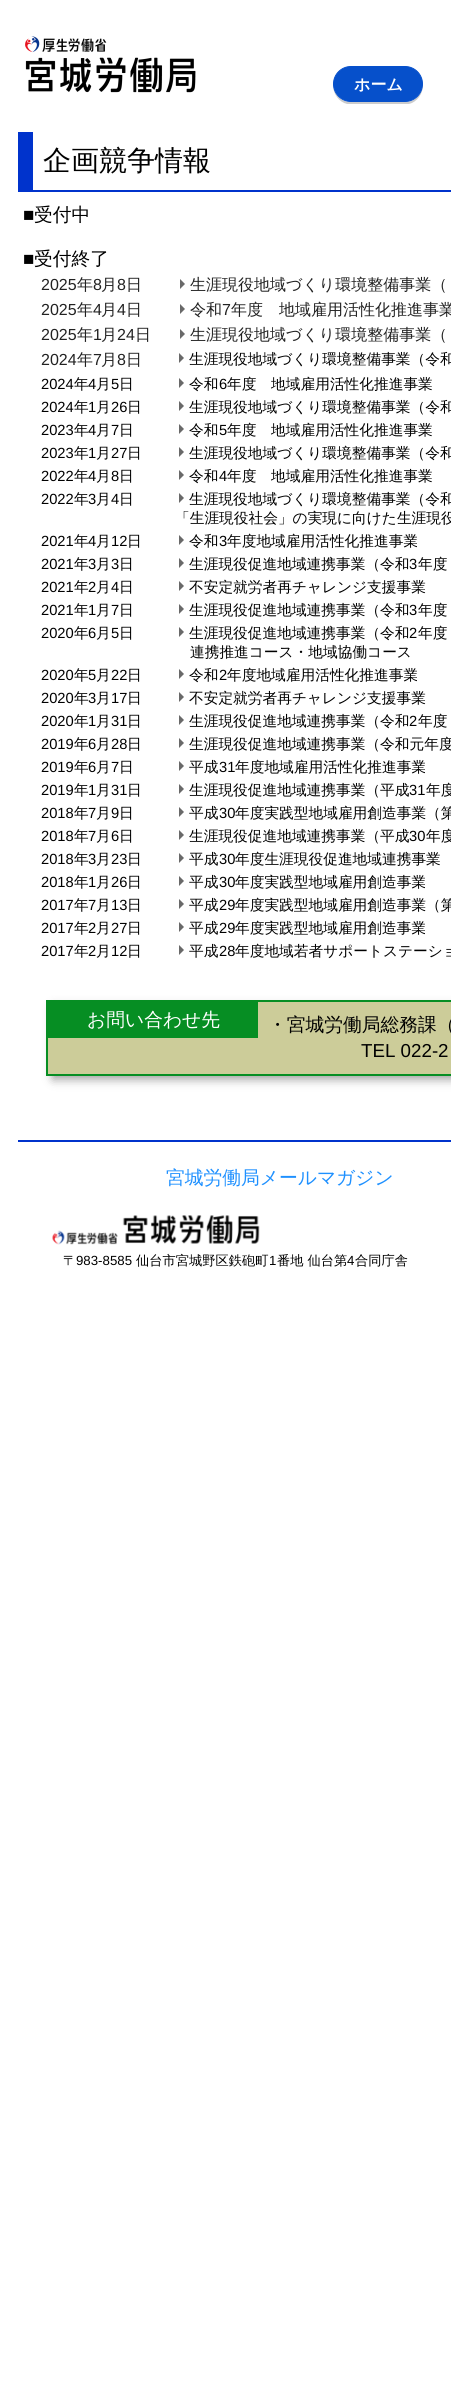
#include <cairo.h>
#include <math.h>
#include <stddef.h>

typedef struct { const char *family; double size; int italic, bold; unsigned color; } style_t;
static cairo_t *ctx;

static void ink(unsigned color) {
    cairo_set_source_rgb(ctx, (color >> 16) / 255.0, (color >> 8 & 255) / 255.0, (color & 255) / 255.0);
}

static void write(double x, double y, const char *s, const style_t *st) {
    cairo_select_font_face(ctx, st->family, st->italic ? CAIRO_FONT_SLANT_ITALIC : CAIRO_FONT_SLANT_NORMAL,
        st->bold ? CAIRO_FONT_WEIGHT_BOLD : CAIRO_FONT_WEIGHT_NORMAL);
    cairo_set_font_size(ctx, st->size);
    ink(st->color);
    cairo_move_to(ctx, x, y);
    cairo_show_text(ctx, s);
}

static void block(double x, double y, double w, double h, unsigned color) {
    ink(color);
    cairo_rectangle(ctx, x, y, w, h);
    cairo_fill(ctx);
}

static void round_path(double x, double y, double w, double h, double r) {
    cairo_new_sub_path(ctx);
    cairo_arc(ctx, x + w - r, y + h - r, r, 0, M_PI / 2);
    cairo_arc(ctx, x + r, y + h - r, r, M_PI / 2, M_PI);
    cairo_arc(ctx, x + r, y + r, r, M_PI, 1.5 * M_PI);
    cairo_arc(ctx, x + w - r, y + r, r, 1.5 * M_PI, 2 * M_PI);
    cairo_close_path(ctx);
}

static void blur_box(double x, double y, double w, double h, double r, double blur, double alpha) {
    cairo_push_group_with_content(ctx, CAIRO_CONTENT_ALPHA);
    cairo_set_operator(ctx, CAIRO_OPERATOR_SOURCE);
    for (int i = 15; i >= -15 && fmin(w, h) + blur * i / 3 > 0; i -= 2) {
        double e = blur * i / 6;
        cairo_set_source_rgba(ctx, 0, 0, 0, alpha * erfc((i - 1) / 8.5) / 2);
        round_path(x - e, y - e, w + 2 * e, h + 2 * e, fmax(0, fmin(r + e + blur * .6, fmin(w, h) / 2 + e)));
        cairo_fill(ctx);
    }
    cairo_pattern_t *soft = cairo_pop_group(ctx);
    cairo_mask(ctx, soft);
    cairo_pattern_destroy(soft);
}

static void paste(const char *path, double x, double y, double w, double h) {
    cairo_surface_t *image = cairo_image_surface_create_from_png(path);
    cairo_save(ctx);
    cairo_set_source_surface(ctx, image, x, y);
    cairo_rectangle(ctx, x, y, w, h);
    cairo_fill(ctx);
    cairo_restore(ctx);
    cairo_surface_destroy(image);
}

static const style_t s1 = {"WenQuanYi Zen Hei", 16, 0, 1, 0xffffff};
static const style_t s2 = {"WenQuanYi Zen Hei Medium", 28, 0, 0, 0x000000};
static const style_t s3 = {"Liberation Sans", 18.75, 0, 0, 0x000000};
static const style_t s4 = {"WenQuanYi Zen Hei Medium", 18.75, 0, 0, 0x000000};
static const style_t s5 = {"Liberation Sans", 16, 0, 0, 0x222222};
static const style_t s6 = {"WenQuanYi Zen Hei Medium", 16, 0, 0, 0x222222};
static const style_t s7 = {"WenQuanYi Zen Hei Medium", 14.7, 0, 0, 0x000000};
static const style_t s8 = {"Liberation Sans", 14.7, 0, 0, 0x000000};
static const style_t s9 = {"WenQuanYi Zen Hei Medium", 18.75, 0, 0, 0xffffff};
static const style_t s10 = {"WenQuanYi Zen Hei Medium", 18.75, 0, 0, 0x1e90ff};
static const style_t s11 = {"WenQuanYi Zen Hei Medium", 13.25, 0, 0, 0x000000};
static const style_t s12 = {"Liberation Sans", 13.25, 0, 0, 0x000000};

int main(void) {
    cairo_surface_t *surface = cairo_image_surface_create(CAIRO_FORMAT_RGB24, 451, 2400);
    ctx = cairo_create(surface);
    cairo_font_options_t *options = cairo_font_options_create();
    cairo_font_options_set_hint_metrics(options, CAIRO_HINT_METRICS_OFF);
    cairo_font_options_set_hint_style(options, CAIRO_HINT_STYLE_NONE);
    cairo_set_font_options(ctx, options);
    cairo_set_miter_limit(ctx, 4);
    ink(0xffffff);
    cairo_paint(ctx);
    paste("pic1.png", 25, 36, 171, 57);
    ink(0xcccccc);
    cairo_new_path(ctx);
    cairo_move_to(ctx, 333, 85);
    cairo_curve_to(ctx, 333, 94, 339, 102, 347, 104);
    cairo_line_to(ctx, 360, 104);
    cairo_line_to(ctx, 409, 104);
    cairo_curve_to(ctx, 417, 102, 423, 94, 423, 85);
    cairo_curve_to(ctx, 422, 94, 415, 102, 405, 102);
    cairo_line_to(ctx, 351, 102);
    cairo_curve_to(ctx, 341, 102, 334, 94, 333, 85);
    cairo_close_path(ctx);
    cairo_fill(ctx);
    ink(0x0650cb);
    round_path(333.5, 66.5, 89, 35, 17.5);
    cairo_fill_preserve(ctx);
    cairo_set_line_width(ctx, 1);
    cairo_stroke(ctx);
    write(354, 90, "ホーム", &s1);
    block(33, 190, 418, 2, 0x0033cc);
    block(18, 132, 15, 60, 0x0033cc);
    write(43, 170, "企画競争情報", &s2);
    write(23, 221, "■", &s3);
    write(34, 221, "受付中", &s4);
    write(23, 265, "■", &s3);
    write(34, 265, "受付終了", &s4);
    write(41, 290, "2025", &s5);
    write(77, 290, "年", &s6);
    write(93, 290, "8", &s5);
    write(101, 290, "月", &s6);
    write(117, 290, "8", &s5);
    write(126, 290, "日", &s6);
    ink(0x696969);
    cairo_new_path(ctx);
    cairo_move_to(ctx, 180, 289);
    cairo_line_to(ctx, 180, 279);
    cairo_line_to(ctx, 185, 284);
    cairo_close_path(ctx);
    cairo_fill(ctx);
    write(190, 290, "生涯現役地域づくり環境整備事業（", &s6);
    write(41, 315, "2025", &s5);
    write(77, 315, "年", &s6);
    write(93, 315, "4", &s5);
    write(101, 315, "月", &s6);
    write(117, 315, "4", &s5);
    write(126, 315, "日", &s6);
    ink(0x696969);
    cairo_new_path(ctx);
    cairo_move_to(ctx, 180, 314);
    cairo_line_to(ctx, 180, 304);
    cairo_line_to(ctx, 185, 309);
    cairo_close_path(ctx);
    cairo_fill(ctx);
    write(190, 315, "令和", &s6);
    write(222, 315, "7", &s5);
    write(231, 315, "年度　地域雇用活性化推進事業", &s6);
    write(41, 340, "2025", &s5);
    write(77, 340, "年", &s6);
    write(93, 340, "1", &s5);
    write(101, 340, "月", &s6);
    write(117, 340, "24", &s5);
    write(135, 340, "日", &s6);
    ink(0x696969);
    cairo_new_path(ctx);
    cairo_move_to(ctx, 180, 339);
    cairo_line_to(ctx, 180, 329);
    cairo_line_to(ctx, 185, 334);
    cairo_close_path(ctx);
    cairo_fill(ctx);
    write(190, 340, "生涯現役地域づくり環境整備事業（", &s6);
    write(41, 365, "2024", &s5);
    write(77, 365, "年", &s6);
    write(93, 365, "7", &s5);
    write(101, 365, "月", &s6);
    write(117, 365, "8", &s5);
    write(126, 365, "日", &s6);
    ink(0x696969);
    cairo_new_path(ctx);
    cairo_move_to(ctx, 179, 363);
    cairo_line_to(ctx, 179, 353);
    cairo_line_to(ctx, 184, 358);
    cairo_close_path(ctx);
    cairo_fill(ctx);
    write(189, 364, "生涯現役地域づくり環境整備事業（令和", &s7);
    write(41, 389, "2024", &s8);
    write(74, 389, "年", &s7);
    write(88, 389, "4", &s8);
    write(96, 389, "月", &s7);
    write(111, 389, "5", &s8);
    write(119, 389, "日", &s7);
    ink(0x696969);
    cairo_new_path(ctx);
    cairo_move_to(ctx, 179, 388);
    cairo_line_to(ctx, 179, 378);
    cairo_line_to(ctx, 184, 383);
    cairo_close_path(ctx);
    cairo_fill(ctx);
    write(189, 389, "令和", &s7);
    write(219, 389, "6", &s8);
    write(227, 389, "年度　地域雇用活性化推進事業", &s7);
    write(41, 412, "2024", &s8);
    write(74, 412, "年", &s7);
    write(88, 412, "1", &s8);
    write(96, 412, "月", &s7);
    write(111, 412, "26", &s8);
    write(127, 412, "日", &s7);
    ink(0x696969);
    cairo_new_path(ctx);
    cairo_move_to(ctx, 179, 411);
    cairo_line_to(ctx, 179, 401);
    cairo_line_to(ctx, 184, 406);
    cairo_close_path(ctx);
    cairo_fill(ctx);
    write(189, 412, "生涯現役地域づくり環境整備事業（令和", &s7);
    write(41, 435, "2023", &s8);
    write(74, 435, "年", &s7);
    write(88, 435, "4", &s8);
    write(96, 435, "月", &s7);
    write(111, 435, "7", &s8);
    write(119, 435, "日", &s7);
    ink(0x696969);
    cairo_new_path(ctx);
    cairo_move_to(ctx, 179, 434);
    cairo_line_to(ctx, 179, 424);
    cairo_line_to(ctx, 184, 429);
    cairo_close_path(ctx);
    cairo_fill(ctx);
    write(189, 435, "令和", &s7);
    write(219, 435, "5", &s8);
    write(227, 435, "年度　地域雇用活性化推進事業", &s7);
    write(41, 458, "2023", &s8);
    write(74, 458, "年", &s7);
    write(88, 458, "1", &s8);
    write(96, 458, "月", &s7);
    write(111, 458, "27", &s8);
    write(127, 458, "日", &s7);
    ink(0x696969);
    cairo_new_path(ctx);
    cairo_move_to(ctx, 179, 457);
    cairo_line_to(ctx, 179, 447);
    cairo_line_to(ctx, 184, 452);
    cairo_close_path(ctx);
    cairo_fill(ctx);
    write(189, 458, "生涯現役地域づくり環境整備事業（令和", &s7);
    write(41, 481, "2022", &s8);
    write(74, 481, "年", &s7);
    write(88, 481, "4", &s8);
    write(96, 481, "月", &s7);
    write(111, 481, "8", &s8);
    write(119, 481, "日", &s7);
    ink(0x696969);
    cairo_new_path(ctx);
    cairo_move_to(ctx, 179, 480);
    cairo_line_to(ctx, 179, 470);
    cairo_line_to(ctx, 184, 475);
    cairo_close_path(ctx);
    cairo_fill(ctx);
    write(189, 481, "令和", &s7);
    write(219, 481, "4", &s8);
    write(227, 481, "年度　地域雇用活性化推進事業", &s7);
    write(41, 504, "2022", &s8);
    write(74, 504, "年", &s7);
    write(88, 504, "3", &s8);
    write(96, 504, "月", &s7);
    write(111, 504, "4", &s8);
    write(119, 504, "日", &s7);
    ink(0x696969);
    cairo_new_path(ctx);
    cairo_move_to(ctx, 179, 503);
    cairo_line_to(ctx, 179, 493);
    cairo_line_to(ctx, 184, 498);
    cairo_close_path(ctx);
    cairo_fill(ctx);
    write(189, 504, "生涯現役地域づくり環境整備事業（令和", &s7);
    write(175, 523, "「生涯現役社会」の実現に向けた生涯現役", &s7);
    write(41, 546, "2021", &s8);
    write(74, 546, "年", &s7);
    write(88, 546, "4", &s8);
    write(96, 546, "月", &s7);
    write(111, 546, "12", &s8);
    write(127, 546, "日", &s7);
    ink(0x696969);
    cairo_new_path(ctx);
    cairo_move_to(ctx, 179, 545);
    cairo_line_to(ctx, 179, 535);
    cairo_line_to(ctx, 184, 540);
    cairo_close_path(ctx);
    cairo_fill(ctx);
    write(189, 546, "令和", &s7);
    write(219, 546, "3", &s8);
    write(227, 546, "年度地域雇用活性化推進事業", &s7);
    write(41, 569, "2021", &s8);
    write(74, 569, "年", &s7);
    write(88, 569, "3", &s8);
    write(96, 569, "月", &s7);
    write(111, 569, "3", &s8);
    write(119, 569, "日", &s7);
    ink(0x696969);
    cairo_new_path(ctx);
    cairo_move_to(ctx, 179, 568);
    cairo_line_to(ctx, 179, 558);
    cairo_line_to(ctx, 184, 563);
    cairo_close_path(ctx);
    cairo_fill(ctx);
    write(189, 569, "生涯現役促進地域連携事業（令和", &s7);
    write(409, 569, "3", &s8);
    write(418, 569, "年度", &s7);
    write(41, 592, "2021", &s8);
    write(74, 592, "年", &s7);
    write(88, 592, "2", &s8);
    write(96, 592, "月", &s7);
    write(111, 592, "4", &s8);
    write(119, 592, "日", &s7);
    ink(0x696969);
    cairo_new_path(ctx);
    cairo_move_to(ctx, 179, 591);
    cairo_line_to(ctx, 179, 581);
    cairo_line_to(ctx, 184, 586);
    cairo_close_path(ctx);
    cairo_fill(ctx);
    write(189, 592, "不安定就労者再チャレンジ支援事業", &s7);
    write(41, 615, "2021", &s8);
    write(74, 615, "年", &s7);
    write(88, 615, "1", &s8);
    write(96, 615, "月", &s7);
    write(111, 615, "7", &s8);
    write(119, 615, "日", &s7);
    ink(0x696969);
    cairo_new_path(ctx);
    cairo_move_to(ctx, 179, 614);
    cairo_line_to(ctx, 179, 604);
    cairo_line_to(ctx, 184, 609);
    cairo_close_path(ctx);
    cairo_fill(ctx);
    write(189, 615, "生涯現役促進地域連携事業（令和", &s7);
    write(409, 615, "3", &s8);
    write(418, 615, "年度", &s7);
    write(41, 638, "2020", &s8);
    write(74, 638, "年", &s7);
    write(88, 638, "6", &s8);
    write(96, 638, "月", &s7);
    write(111, 638, "5", &s8);
    write(119, 638, "日", &s7);
    ink(0x696969);
    cairo_new_path(ctx);
    cairo_move_to(ctx, 179, 637);
    cairo_line_to(ctx, 179, 627);
    cairo_line_to(ctx, 184, 632);
    cairo_close_path(ctx);
    cairo_fill(ctx);
    write(189, 638, "生涯現役促進地域連携事業（令和", &s7);
    write(409, 638, "2", &s8);
    write(418, 638, "年度", &s7);
    write(190, 657, "連携推進コース・地域協働コース", &s7);
    write(41, 680, "2020", &s8);
    write(74, 680, "年", &s7);
    write(88, 680, "5", &s8);
    write(96, 680, "月", &s7);
    write(111, 680, "22", &s8);
    write(127, 680, "日", &s7);
    ink(0x696969);
    cairo_new_path(ctx);
    cairo_move_to(ctx, 179, 679);
    cairo_line_to(ctx, 179, 669);
    cairo_line_to(ctx, 184, 674);
    cairo_close_path(ctx);
    cairo_fill(ctx);
    write(189, 680, "令和", &s7);
    write(219, 680, "2", &s8);
    write(227, 680, "年度地域雇用活性化推進事業", &s7);
    write(41, 703, "2020", &s8);
    write(74, 703, "年", &s7);
    write(88, 703, "3", &s8);
    write(96, 703, "月", &s7);
    write(111, 703, "17", &s8);
    write(127, 703, "日", &s7);
    ink(0x696969);
    cairo_new_path(ctx);
    cairo_move_to(ctx, 179, 702);
    cairo_line_to(ctx, 179, 692);
    cairo_line_to(ctx, 184, 697);
    cairo_close_path(ctx);
    cairo_fill(ctx);
    write(189, 703, "不安定就労者再チャレンジ支援事業", &s7);
    write(41, 726, "2020", &s8);
    write(74, 726, "年", &s7);
    write(88, 726, "1", &s8);
    write(96, 726, "月", &s7);
    write(111, 726, "31", &s8);
    write(127, 726, "日", &s7);
    ink(0x696969);
    cairo_new_path(ctx);
    cairo_move_to(ctx, 179, 725);
    cairo_line_to(ctx, 179, 715);
    cairo_line_to(ctx, 184, 720);
    cairo_close_path(ctx);
    cairo_fill(ctx);
    write(189, 726, "生涯現役促進地域連携事業（令和", &s7);
    write(409, 726, "2", &s8);
    write(418, 726, "年度", &s7);
    write(41, 749, "2019", &s8);
    write(74, 749, "年", &s7);
    write(88, 749, "6", &s8);
    write(96, 749, "月", &s7);
    write(111, 749, "28", &s8);
    write(127, 749, "日", &s7);
    ink(0x696969);
    cairo_new_path(ctx);
    cairo_move_to(ctx, 179, 748);
    cairo_line_to(ctx, 179, 738);
    cairo_line_to(ctx, 184, 743);
    cairo_close_path(ctx);
    cairo_fill(ctx);
    write(189, 749, "生涯現役促進地域連携事業（令和元年度", &s7);
    write(41, 772, "2019", &s8);
    write(74, 772, "年", &s7);
    write(88, 772, "6", &s8);
    write(96, 772, "月", &s7);
    write(111, 772, "7", &s8);
    write(119, 772, "日", &s7);
    ink(0x696969);
    cairo_new_path(ctx);
    cairo_move_to(ctx, 179, 771);
    cairo_line_to(ctx, 179, 761);
    cairo_line_to(ctx, 184, 766);
    cairo_close_path(ctx);
    cairo_fill(ctx);
    write(189, 772, "平成", &s7);
    write(219, 772, "31", &s8);
    write(235, 772, "年度地域雇用活性化推進事業", &s7);
    write(41, 795, "2019", &s8);
    write(74, 795, "年", &s7);
    write(88, 795, "1", &s8);
    write(96, 795, "月", &s7);
    write(111, 795, "31", &s8);
    write(127, 795, "日", &s7);
    ink(0x696969);
    cairo_new_path(ctx);
    cairo_move_to(ctx, 179, 794);
    cairo_line_to(ctx, 179, 784);
    cairo_line_to(ctx, 184, 789);
    cairo_close_path(ctx);
    cairo_fill(ctx);
    write(189, 795, "生涯現役促進地域連携事業（平成", &s7);
    write(409, 795, "31", &s8);
    write(426, 795, "年度", &s7);
    write(41, 818, "2018", &s8);
    write(74, 818, "年", &s7);
    write(88, 818, "7", &s8);
    write(96, 818, "月", &s7);
    write(111, 818, "9", &s8);
    write(119, 818, "日", &s7);
    ink(0x696969);
    cairo_new_path(ctx);
    cairo_move_to(ctx, 179, 817);
    cairo_line_to(ctx, 179, 807);
    cairo_line_to(ctx, 184, 812);
    cairo_close_path(ctx);
    cairo_fill(ctx);
    write(189, 818, "平成", &s7);
    write(219, 818, "30", &s8);
    write(235, 818, "年度実践型地域雇用創造事業（第", &s7);
    write(41, 841, "2018", &s8);
    write(74, 841, "年", &s7);
    write(88, 841, "7", &s8);
    write(96, 841, "月", &s7);
    write(111, 841, "6", &s8);
    write(119, 841, "日", &s7);
    ink(0x696969);
    cairo_new_path(ctx);
    cairo_move_to(ctx, 179, 840);
    cairo_line_to(ctx, 179, 830);
    cairo_line_to(ctx, 184, 835);
    cairo_close_path(ctx);
    cairo_fill(ctx);
    write(189, 841, "生涯現役促進地域連携事業（平成", &s7);
    write(409, 841, "30", &s8);
    write(426, 841, "年度", &s7);
    write(41, 864, "2018", &s8);
    write(74, 864, "年", &s7);
    write(88, 864, "3", &s8);
    write(96, 864, "月", &s7);
    write(111, 864, "23", &s8);
    write(127, 864, "日", &s7);
    ink(0x696969);
    cairo_new_path(ctx);
    cairo_move_to(ctx, 179, 863);
    cairo_line_to(ctx, 179, 853);
    cairo_line_to(ctx, 184, 858);
    cairo_close_path(ctx);
    cairo_fill(ctx);
    write(189, 864, "平成", &s7);
    write(219, 864, "30", &s8);
    write(235, 864, "年度生涯現役促進地域連携事業", &s7);
    write(41, 887, "2018", &s8);
    write(74, 887, "年", &s7);
    write(88, 887, "1", &s8);
    write(96, 887, "月", &s7);
    write(111, 887, "26", &s8);
    write(127, 887, "日", &s7);
    ink(0x696969);
    cairo_new_path(ctx);
    cairo_move_to(ctx, 179, 886);
    cairo_line_to(ctx, 179, 876);
    cairo_line_to(ctx, 184, 881);
    cairo_close_path(ctx);
    cairo_fill(ctx);
    write(189, 887, "平成", &s7);
    write(219, 887, "30", &s8);
    write(235, 887, "年度実践型地域雇用創造事業", &s7);
    write(41, 910, "2017", &s8);
    write(74, 910, "年", &s7);
    write(88, 910, "7", &s8);
    write(96, 910, "月", &s7);
    write(111, 910, "13", &s8);
    write(127, 910, "日", &s7);
    ink(0x696969);
    cairo_new_path(ctx);
    cairo_move_to(ctx, 179, 909);
    cairo_line_to(ctx, 179, 899);
    cairo_line_to(ctx, 184, 904);
    cairo_close_path(ctx);
    cairo_fill(ctx);
    write(189, 910, "平成", &s7);
    write(219, 910, "29", &s8);
    write(235, 910, "年度実践型地域雇用創造事業（第", &s7);
    write(41, 933, "2017", &s8);
    write(74, 933, "年", &s7);
    write(88, 933, "2", &s8);
    write(96, 933, "月", &s7);
    write(111, 933, "27", &s8);
    write(127, 933, "日", &s7);
    ink(0x696969);
    cairo_new_path(ctx);
    cairo_move_to(ctx, 179, 932);
    cairo_line_to(ctx, 179, 922);
    cairo_line_to(ctx, 184, 927);
    cairo_close_path(ctx);
    cairo_fill(ctx);
    write(189, 933, "平成", &s7);
    write(219, 933, "29", &s8);
    write(235, 933, "年度実践型地域雇用創造事業", &s7);
    write(41, 956, "2017", &s8);
    write(74, 956, "年", &s7);
    write(88, 956, "2", &s8);
    write(96, 956, "月", &s7);
    write(111, 956, "12", &s8);
    write(127, 956, "日", &s7);
    ink(0x696969);
    cairo_new_path(ctx);
    cairo_move_to(ctx, 179, 955);
    cairo_line_to(ctx, 179, 945);
    cairo_line_to(ctx, 184, 950);
    cairo_close_path(ctx);
    cairo_fill(ctx);
    write(189, 956, "平成", &s7);
    write(219, 956, "28", &s8);
    write(235, 956, "年度地域若者サポートステーショ", &s7);
    ink(0x000000);
    blur_box(53, 1007, 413, 72, 0, 5, 0.4);
    block(48, 1002, 403, 72, 0xcccc99);
    cairo_rectangle(ctx, 47, 1001, 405, 74);
    ink(0x068e23);
    cairo_set_line_width(ctx, 2);
    cairo_stroke(ctx);
    block(48, 1002, 210, 36, 0x068e23);
    write(87, 1026, "お問い合わせ先", &s9);
    write(268, 1031, "・宮城労働局総務課（", &s4);
    write(361, 1057, "TEL 022-2", &s3);
    block(18, 1140, 433, 2, 0x0033cc);
    write(166, 1184, "宮城労働局メールマガジン", &s10);
    paste("pic2.png", 52, 1215, 208, 30);
    write(63, 1265, "〒", &s11);
    write(76, 1265, "983-8585", &s12);
    write(136, 1265, "仙台市宮城野区鉄砲町", &s11);
    write(269, 1265, "1", &s12);
    write(277, 1265, "番地 仙台第", &s11);
    write(347, 1265, "4", &s12);
    write(355, 1265, "合同庁舎", &s11);
    cairo_surface_write_to_png(surface, "screenshot.png");
    cairo_font_options_destroy(options);
    cairo_destroy(ctx);
    cairo_surface_destroy(surface);
    return 0;
}
